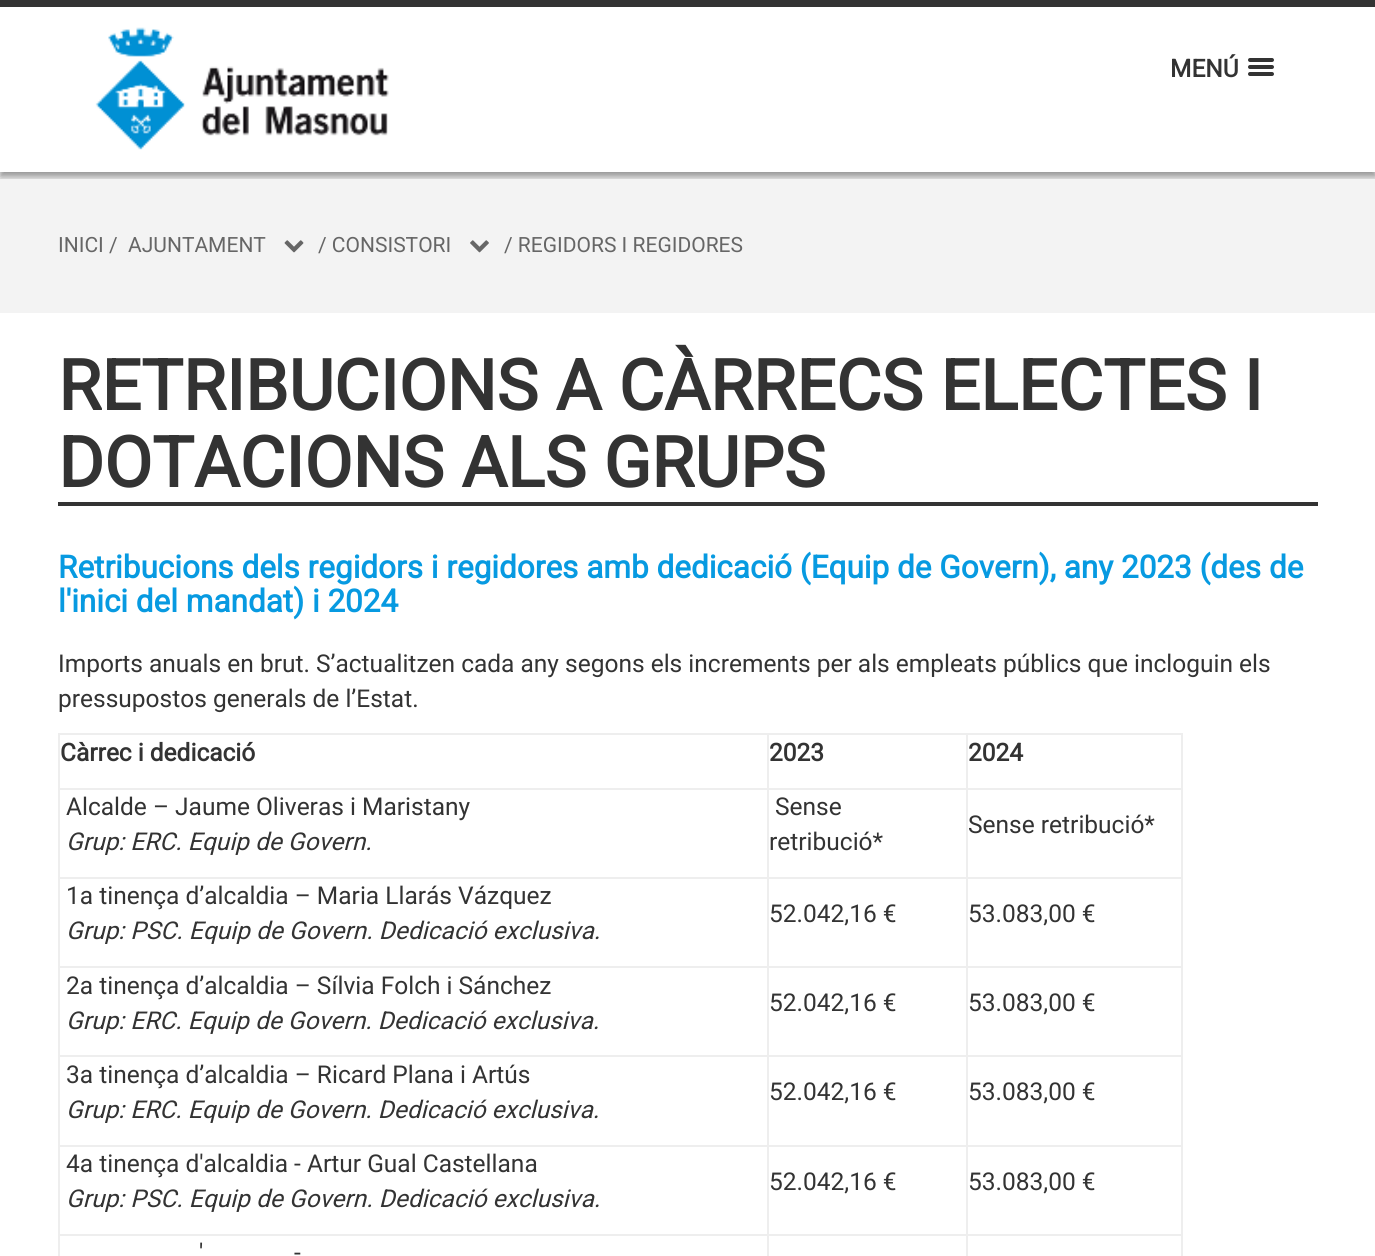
#include <cairo.h>
#include <math.h>
#include <stddef.h>

typedef struct { const char *family; double size; int italic, bold; unsigned color; } style_t;
static cairo_t *ctx;

static void ink(unsigned color) {
    cairo_set_source_rgb(ctx, (color >> 16) / 255.0, (color >> 8 & 255) / 255.0, (color & 255) / 255.0);
}

static void write(double x, double y, const char *s, const style_t *st) {
    cairo_select_font_face(ctx, st->family, st->italic ? CAIRO_FONT_SLANT_ITALIC : CAIRO_FONT_SLANT_NORMAL,
        st->bold ? CAIRO_FONT_WEIGHT_BOLD : CAIRO_FONT_WEIGHT_NORMAL);
    cairo_set_font_size(ctx, st->size);
    ink(st->color);
    cairo_move_to(ctx, x, y);
    cairo_show_text(ctx, s);
}

static void block(double x, double y, double w, double h, unsigned color) {
    ink(color);
    cairo_rectangle(ctx, x, y, w, h);
    cairo_fill(ctx);
}

static void round_path(double x, double y, double w, double h, double r) {
    cairo_new_sub_path(ctx);
    cairo_arc(ctx, x + w - r, y + h - r, r, 0, M_PI / 2);
    cairo_arc(ctx, x + r, y + h - r, r, M_PI / 2, M_PI);
    cairo_arc(ctx, x + r, y + r, r, M_PI, 1.5 * M_PI);
    cairo_arc(ctx, x + w - r, y + r, r, 1.5 * M_PI, 2 * M_PI);
    cairo_close_path(ctx);
}

static void blur_box(double x, double y, double w, double h, double r, double blur, double alpha) {
    cairo_push_group_with_content(ctx, CAIRO_CONTENT_ALPHA);
    cairo_set_operator(ctx, CAIRO_OPERATOR_SOURCE);
    for (int i = 15; i >= -15 && fmin(w, h) + blur * i / 3 > 0; i -= 2) {
        double e = blur * i / 6;
        cairo_set_source_rgba(ctx, 0, 0, 0, alpha * erfc((i - 1) / 8.5) / 2);
        round_path(x - e, y - e, w + 2 * e, h + 2 * e, fmax(0, fmin(r + e + blur * .6, fmin(w, h) / 2 + e)));
        cairo_fill(ctx);
    }
    cairo_pattern_t *soft = cairo_pop_group(ctx);
    cairo_mask(ctx, soft);
    cairo_pattern_destroy(soft);
}

static void paste(const char *path, double x, double y, double w, double h) {
    cairo_surface_t *image = cairo_image_surface_create_from_png(path);
    cairo_save(ctx);
    cairo_set_source_surface(ctx, image, x, y);
    cairo_rectangle(ctx, x, y, w, h);
    cairo_fill(ctx);
    cairo_restore(ctx);
    cairo_surface_destroy(image);
}

static const style_t s1 = {"Roboto", 24.5, 0, 1, 0x333333};
static const style_t s2 = {"Roboto", 21, 0, 0, 0x666666};
static const style_t s3 = {"Roboto", 70, 0, 1, 0x333333};
static const style_t s4 = {"Roboto", 31.5, 0, 1, 0x079ae1};
static const style_t s5 = {"Roboto", 24.5, 0, 0, 0x333333};
static const style_t s6 = {"Roboto", 24.5, 1, 0, 0x333333};

int main(void) {
    cairo_surface_t *surface = cairo_image_surface_create(CAIRO_FORMAT_RGB24, 1375, 1256);
    ctx = cairo_create(surface);
    cairo_font_options_t *options = cairo_font_options_create();
    cairo_font_options_set_hint_metrics(options, CAIRO_HINT_METRICS_OFF);
    cairo_font_options_set_hint_style(options, CAIRO_HINT_STYLE_NONE);
    cairo_set_font_options(ctx, options);
    cairo_set_miter_limit(ctx, 4);
    ink(0xffffff);
    cairo_paint(ctx);
    ink(0x000000);
    blur_box(0, 5, 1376, 172, 0, 4.5, 0.45);
    block(0, 7, 1375, 165, 0xffffff);
    block(0, 0, 1375, 7, 0x333333);
    paste("pic1.png", 95, 27, 294, 123);
    write(1170, 77, "MENÚ", &s1);
    round_path(1248, 58, 26, 4, 2);
    cairo_fill(ctx);
    round_path(1248, 65, 26, 4, 2);
    cairo_fill(ctx);
    round_path(1248, 72, 26, 4, 2);
    cairo_fill(ctx);
    block(0, 179, 1375, 134, 0xf3f3f3);
    write(58, 252, "INICI /", &s2);
    write(128, 252, "AJUNTAMENT", &s2);
    paste("pic2.png", 284, 240, 20, 13);
    write(318, 252, "/ CONSISTORI", &s2);
    paste("pic3.png", 470, 240, 19, 13);
    write(504, 252, "/ REGIDORS I REGIDORES", &s2);
    block(58, 502, 1260, 4, 0x333333);
    write(58, 410, "RETRIBUCIONS A CÀRRECS ELECTES I", &s3);
    write(58, 487, "DOTACIONS ALS GRUPS", &s3);
    write(58, 578, "Retribucions dels regidors i regidores amb dedicació (Equip de Govern), any 2023 (des de", &s4);
    write(58, 612, "l'inici del mandat) i 2024", &s4);
    write(58, 672, "Imports anuals en brut. S’actualitzen cada any segons els increments per als empleats públics que incloguin els", &s5);
    write(58, 707, "pressupostos generals de l’Estat.", &s5);
    block(966, 733, 217, 2, 0xeeeeee);
    block(966, 788, 217, 2, 0xeeeeee);
    block(966, 877, 217, 2, 0xeeeeee);
    block(966, 966, 217, 2, 0xeeeeee);
    block(966, 1055, 217, 2, 0xeeeeee);
    block(966, 1145, 217, 2, 0xeeeeee);
    block(966, 1234, 217, 2, 0xeeeeee);
    block(966, 1234, 2, 22, 0xeeeeee);
    block(767, 1234, 201, 2, 0xeeeeee);
    block(966, 1145, 2, 91, 0xeeeeee);
    block(767, 1145, 201, 2, 0xeeeeee);
    block(966, 1055, 2, 91, 0xeeeeee);
    block(767, 1055, 201, 2, 0xeeeeee);
    block(966, 966, 2, 91, 0xeeeeee);
    block(767, 966, 201, 2, 0xeeeeee);
    block(966, 877, 2, 91, 0xeeeeee);
    block(767, 877, 201, 2, 0xeeeeee);
    block(966, 788, 2, 91, 0xeeeeee);
    block(767, 788, 201, 2, 0xeeeeee);
    block(966, 733, 2, 56, 0xeeeeee);
    block(767, 733, 201, 2, 0xeeeeee);
    block(767, 1234, 2, 22, 0xeeeeee);
    block(58, 1234, 710, 2, 0xeeeeee);
    block(767, 1145, 2, 91, 0xeeeeee);
    block(58, 1145, 710, 2, 0xeeeeee);
    block(767, 1055, 2, 91, 0xeeeeee);
    block(58, 1055, 710, 2, 0xeeeeee);
    block(767, 966, 2, 91, 0xeeeeee);
    block(58, 966, 710, 2, 0xeeeeee);
    block(767, 877, 2, 91, 0xeeeeee);
    block(58, 877, 710, 2, 0xeeeeee);
    block(767, 788, 2, 91, 0xeeeeee);
    block(58, 788, 710, 2, 0xeeeeee);
    block(767, 733, 2, 56, 0xeeeeee);
    block(58, 733, 710, 2, 0xeeeeee);
    block(58, 1234, 2, 22, 0xeeeeee);
    block(58, 1145, 2, 91, 0xeeeeee);
    block(58, 1055, 2, 91, 0xeeeeee);
    block(58, 966, 2, 91, 0xeeeeee);
    block(58, 877, 2, 91, 0xeeeeee);
    block(58, 788, 2, 91, 0xeeeeee);
    block(58, 733, 2, 56, 0xeeeeee);
    write(60, 761, "Càrrec i dedicació", &s1);
    write(769, 761, "2023", &s1);
    block(1181, 1234, 2, 22, 0xeeeeee);
    block(1181, 1145, 2, 91, 0xeeeeee);
    block(1181, 1055, 2, 91, 0xeeeeee);
    block(1181, 966, 2, 91, 0xeeeeee);
    block(1181, 877, 2, 91, 0xeeeeee);
    block(1181, 788, 2, 91, 0xeeeeee);
    block(1181, 733, 2, 56, 0xeeeeee);
    write(968, 761, "2024", &s1);
    write(66, 815, "Alcalde – Jaume Oliveras i Maristany", &s5);
    write(66, 850, "Grup: ERC. Equip de Govern.", &s6);
    write(775, 815, "Sense", &s5);
    write(769, 850, "retribució*", &s5);
    write(968, 833, "Sense retribució*", &s5);
    write(66, 904, "1a tinença d’alcaldia – Maria Llarás Vázquez", &s5);
    write(66, 939, "Grup: PSC. Equip de Govern. Dedicació exclusiva.", &s6);
    write(769, 922, "52.042,16 €", &s5);
    write(968, 922, "53.083,00 €", &s5);
    write(66, 994, "2a tinença d’alcaldia – Sílvia Folch i Sánchez", &s5);
    write(66, 1029, "Grup: ERC. Equip de Govern. Dedicació exclusiva.", &s6);
    write(769, 1011, "52.042,16 €", &s5);
    write(968, 1011, "53.083,00 €", &s5);
    write(66, 1083, "3a tinença d’alcaldia – Ricard Plana i Artús", &s5);
    write(66, 1118, "Grup: ERC. Equip de Govern. Dedicació exclusiva.", &s6);
    write(769, 1100, "52.042,16 €", &s5);
    write(968, 1100, "53.083,00 €", &s5);
    write(66, 1172, "4a tinença d'alcaldia - Artur Gual Castellana", &s5);
    write(66, 1207, "Grup: PSC. Equip de Govern. Dedicació exclusiva.", &s6);
    write(769, 1190, "52.042,16 €", &s5);
    write(968, 1190, "53.083,00 €", &s5);
    write(199, 1261, "'", &s5);
    write(294, 1261, "-", &s5);
    cairo_surface_write_to_png(surface, "screenshot.png");
    cairo_font_options_destroy(options);
    cairo_destroy(ctx);
    cairo_surface_destroy(surface);
    return 0;
}
